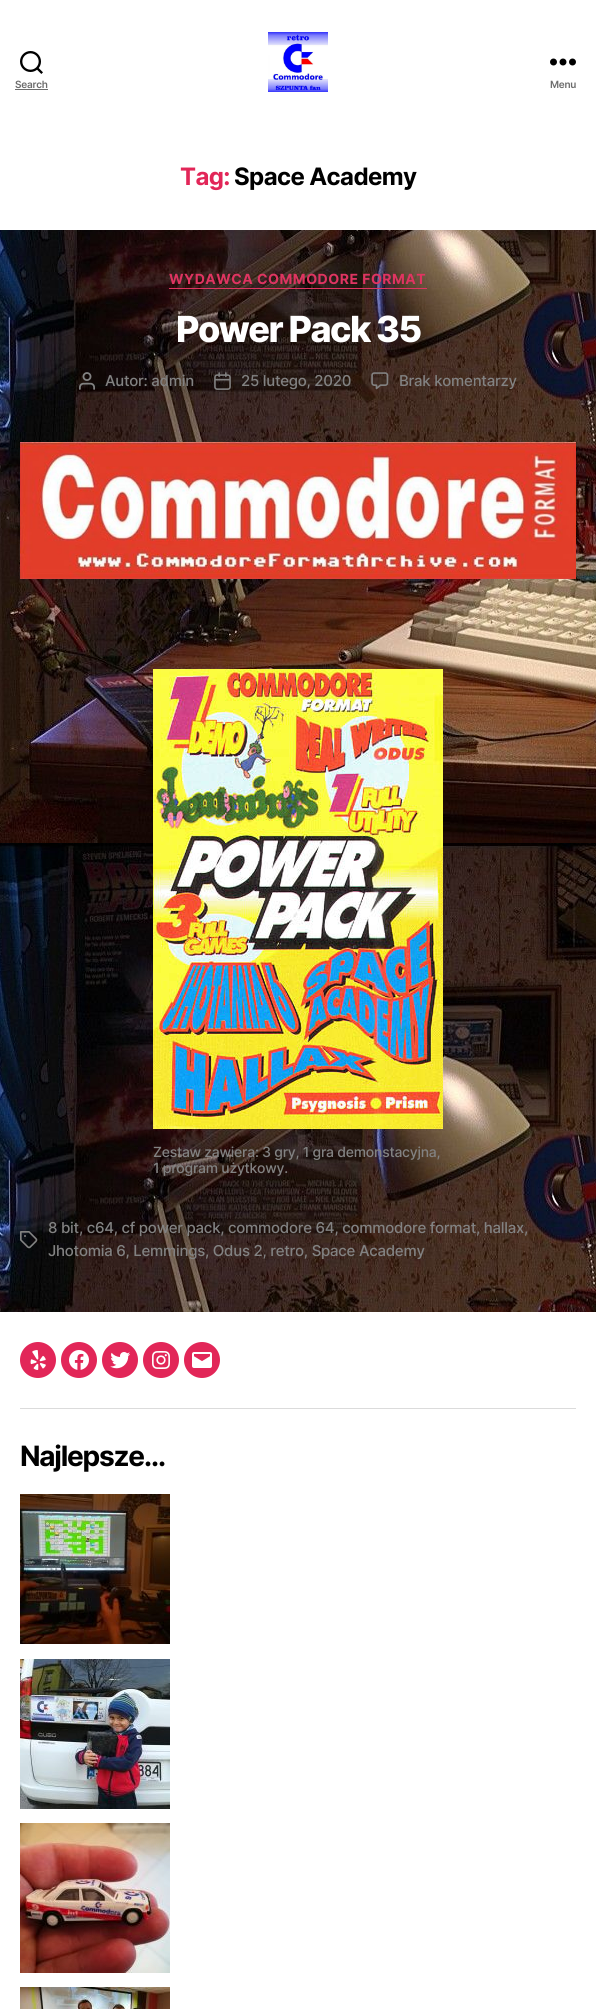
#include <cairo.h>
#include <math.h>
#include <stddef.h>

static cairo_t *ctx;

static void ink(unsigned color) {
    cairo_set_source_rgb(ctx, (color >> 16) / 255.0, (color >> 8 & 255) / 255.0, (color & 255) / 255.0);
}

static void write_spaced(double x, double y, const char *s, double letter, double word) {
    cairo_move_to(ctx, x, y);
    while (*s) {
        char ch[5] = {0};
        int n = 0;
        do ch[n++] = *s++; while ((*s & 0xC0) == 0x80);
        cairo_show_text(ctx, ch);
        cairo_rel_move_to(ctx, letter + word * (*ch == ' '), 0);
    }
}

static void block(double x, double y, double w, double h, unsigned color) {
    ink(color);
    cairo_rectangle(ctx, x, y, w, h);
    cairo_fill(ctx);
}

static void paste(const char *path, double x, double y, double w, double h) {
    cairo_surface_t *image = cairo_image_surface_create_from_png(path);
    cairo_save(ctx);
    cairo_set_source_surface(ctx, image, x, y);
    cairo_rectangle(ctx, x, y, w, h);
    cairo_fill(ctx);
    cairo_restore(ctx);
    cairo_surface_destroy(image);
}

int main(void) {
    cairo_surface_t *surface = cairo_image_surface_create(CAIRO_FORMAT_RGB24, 596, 2009);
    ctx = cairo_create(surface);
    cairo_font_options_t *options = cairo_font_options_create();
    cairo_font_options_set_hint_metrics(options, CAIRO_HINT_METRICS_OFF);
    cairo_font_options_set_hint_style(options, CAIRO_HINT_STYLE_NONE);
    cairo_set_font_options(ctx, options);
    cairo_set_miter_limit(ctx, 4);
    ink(0xffffff);
    cairo_paint(ctx);
    paste("pic1.png", 0, 230, 596, 1082);
    paste("pic2.png", 20, 51, 23, 23);
    cairo_select_font_face(ctx, "Inter SemiBold", CAIRO_FONT_SLANT_NORMAL, CAIRO_FONT_WEIGHT_NORMAL);
    cairo_set_font_size(ctx, 10);
    ink(0x6d6d6d);
    write_spaced(15, 88, "Search", -0.25, 0);
    block(15, 89, 33, 1, 0x6d6d6d);
    paste("pic3.png", 268, 32, 60, 60);
    paste("pic4.png", 550, 58, 26, 8);
    write_spaced(550, 88, "Menu", -0.25, 0);
    cairo_select_font_face(ctx, "Inter", CAIRO_FONT_SLANT_NORMAL, CAIRO_FONT_WEIGHT_BOLD);
    cairo_set_font_size(ctx, 24);
    ink(0xe22658);
    write_spaced(180, 185, "Tag:", -0.6, 0);
    ink(0x000000);
    write_spaced(234, 185, "Space Academy", -0.6, 0);
    block(169, 288, 258, 1, 0xdf3461);
    cairo_set_font_size(ctx, 14);
    write_spaced(169, 284, "WYDAWCA COMMODORE FORMAT", 0.5, 0);
    cairo_select_font_face(ctx, "Inter ExtraBold", CAIRO_FONT_SLANT_NORMAL, CAIRO_FONT_WEIGHT_NORMAL);
    cairo_set_font_size(ctx, 36);
    ink(0xffffff);
    write_spaced(176, 342, "Power Pack 35", -1.5, 0);
    paste("pic5.png", 79, 372, 16, 18);
    cairo_select_font_face(ctx, "Inter Medium", CAIRO_FONT_SLANT_NORMAL, CAIRO_FONT_WEIGHT_NORMAL);
    cairo_set_font_size(ctx, 15);
    ink(0x828282);
    write_spaced(105, 386, "Autor: admin", -0.25, 0);
    paste("pic6.png", 214, 372, 17, 18);
    write_spaced(241, 386, "25 lutego, 2020", -0.25, 0);
    paste("pic7.png", 371, 372, 18, 18);
    write_spaced(399, 386, "Brak komentarzy", -0.25, 0);
    paste("pic8.png", 20, 442, 556, 137);
    paste("pic9.png", 153, 669, 290, 460);
    cairo_set_font_size(ctx, 14);
    write_spaced(153, 1157, "Zestaw zawiera: 3 gry, 1 gra demonstacyjna,", -0.25, 0);
    write_spaced(153, 1173, "1 program użytkowy.", -0.25, 0);
    paste("pic10.png", 20, 1231, 18, 18);
    cairo_set_font_size(ctx, 15);
    write_spaced(48, 1233, "8 bit, c64, cf power pack, commodore 64, commodore format, hallax,", -0.25, 0);
    write_spaced(48, 1256, "Jhotomia 6, Lemmings, Odus 2, retro, Space Academy", -0.25, 0);
    block(20, 1408, 556, 1, 0xdbdbdb);
    ink(0xe22658);
    cairo_new_path(ctx);
    cairo_arc(ctx, 38, 1360, 18, 0, 2 * M_PI);
    cairo_fill(ctx);
    paste("pic11.png", 30, 1350, 16, 20);
    cairo_arc(ctx, 79, 1360, 18, 0, 2 * M_PI);
    cairo_fill(ctx);
    paste("pic12.png", 69, 1350, 20, 20);
    cairo_arc(ctx, 120, 1360, 18, 0, 2 * M_PI);
    cairo_fill(ctx);
    paste("pic13.png", 110, 1352, 20, 17);
    cairo_arc(ctx, 161, 1360, 18, 0, 2 * M_PI);
    cairo_fill(ctx);
    paste("pic14.png", 152, 1351, 18, 18);
    cairo_arc(ctx, 202, 1360, 18, 0, 2 * M_PI);
    cairo_fill(ctx);
    paste("pic15.png", 192, 1352, 20, 16);
    cairo_select_font_face(ctx, "Inter", CAIRO_FONT_SLANT_NORMAL, CAIRO_FONT_WEIGHT_BOLD);
    cairo_set_font_size(ctx, 28);
    ink(0x000000);
    write_spaced(20, 1466, "Najlepsze…", -1.25, 0);
    paste("pic16.png", 20, 1494, 150, 150);
    paste("pic17.png", 20, 1659, 150, 150);
    paste("pic18.png", 20, 1823, 150, 150);
    paste("pic19.png", 20, 1987, 150, 22);
    cairo_surface_write_to_png(surface, "screenshot.png");
    cairo_font_options_destroy(options);
    cairo_destroy(ctx);
    cairo_surface_destroy(surface);
    return 0;
}
